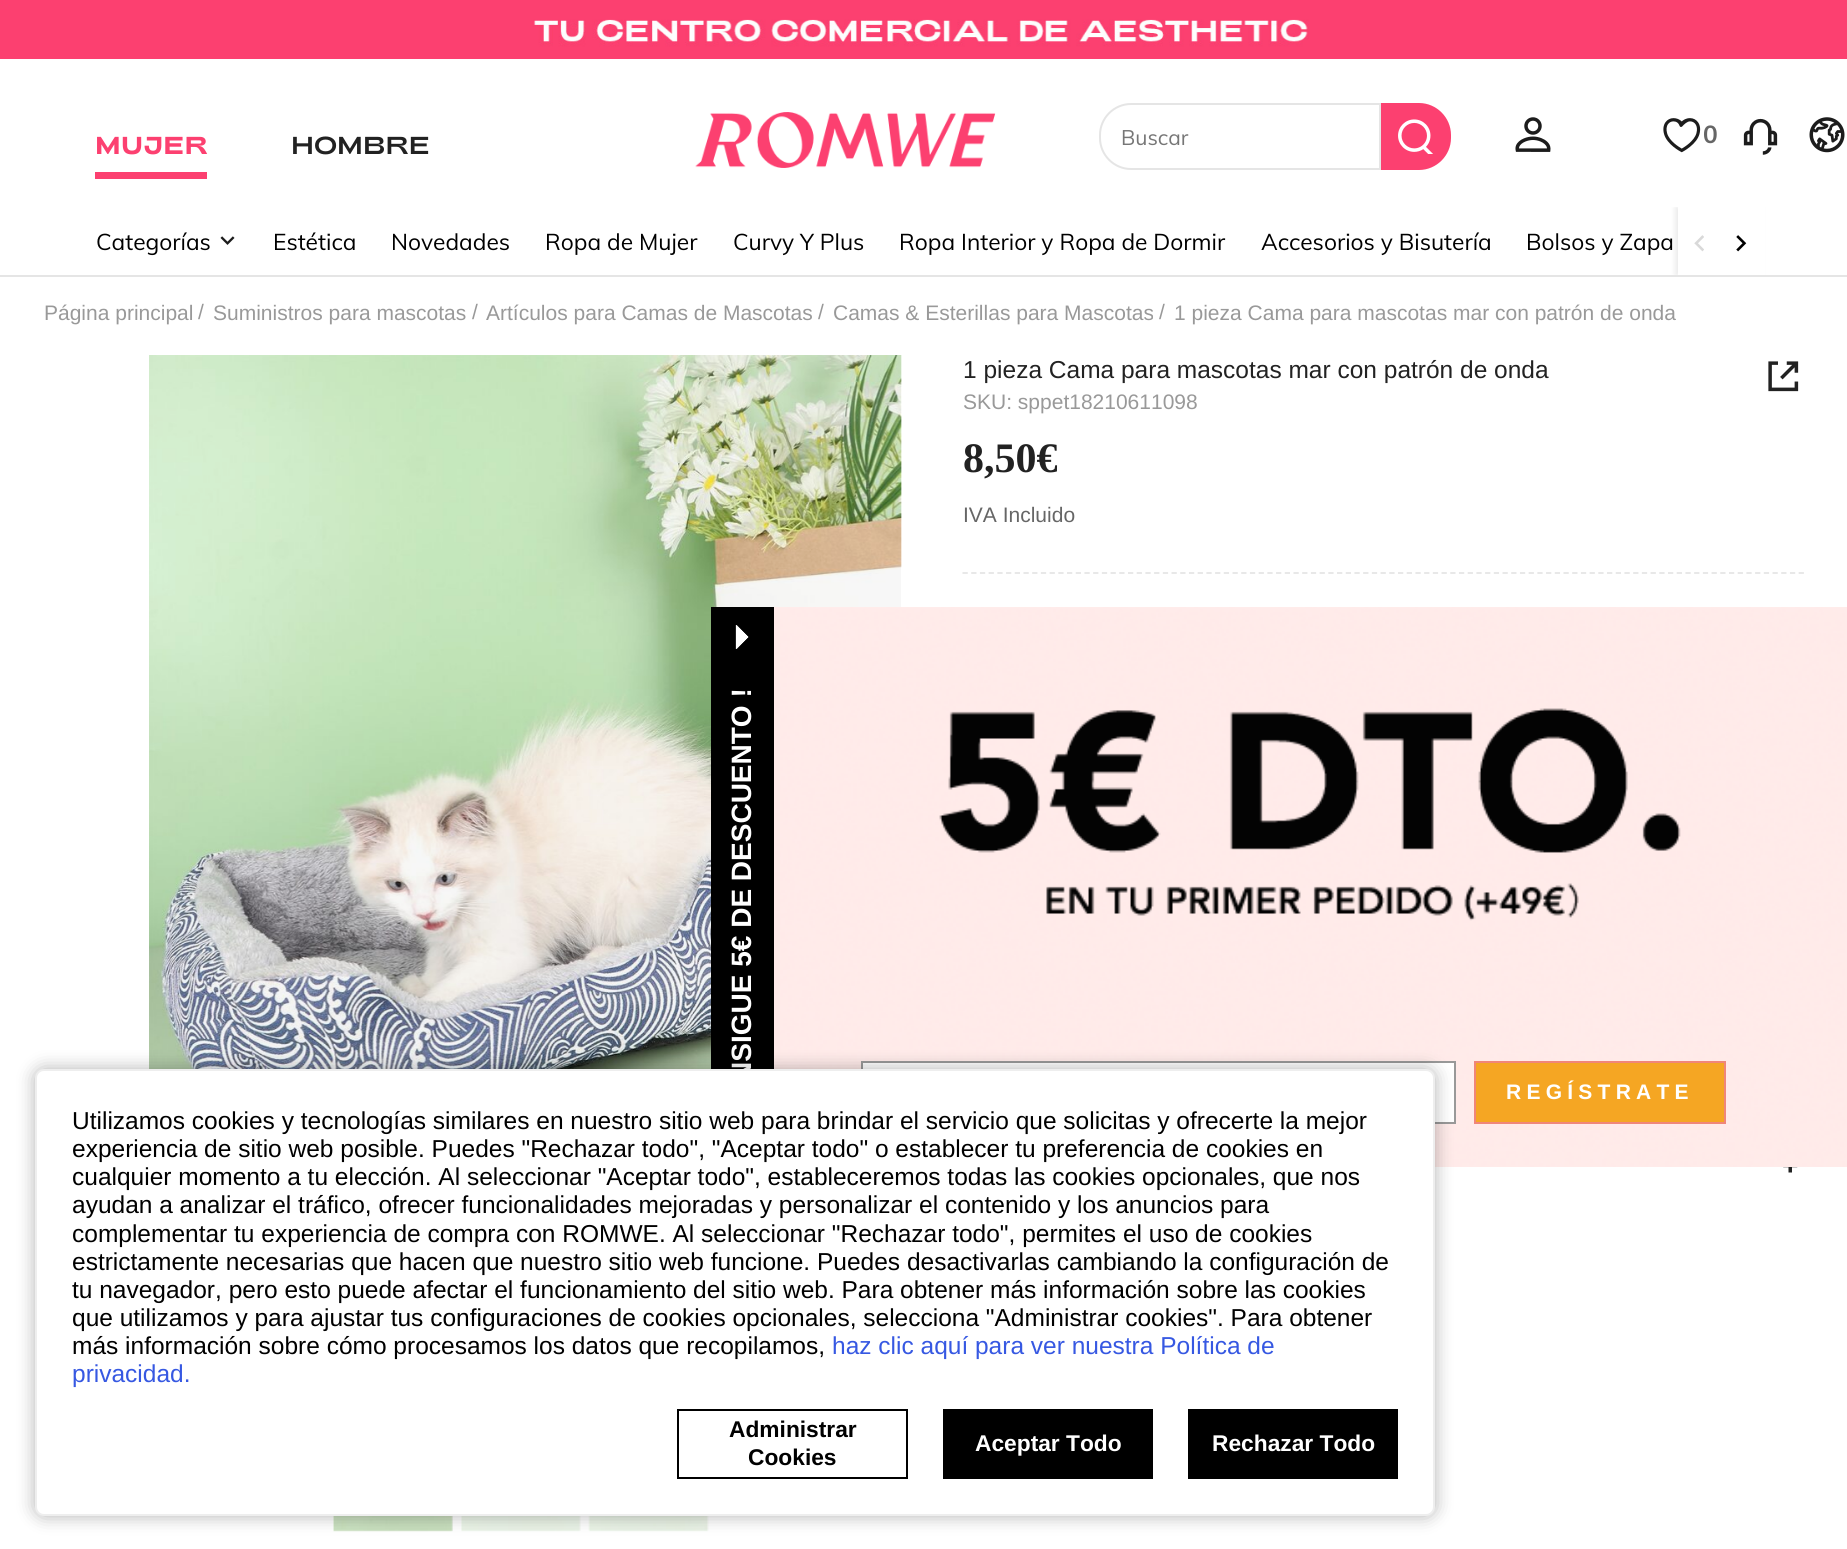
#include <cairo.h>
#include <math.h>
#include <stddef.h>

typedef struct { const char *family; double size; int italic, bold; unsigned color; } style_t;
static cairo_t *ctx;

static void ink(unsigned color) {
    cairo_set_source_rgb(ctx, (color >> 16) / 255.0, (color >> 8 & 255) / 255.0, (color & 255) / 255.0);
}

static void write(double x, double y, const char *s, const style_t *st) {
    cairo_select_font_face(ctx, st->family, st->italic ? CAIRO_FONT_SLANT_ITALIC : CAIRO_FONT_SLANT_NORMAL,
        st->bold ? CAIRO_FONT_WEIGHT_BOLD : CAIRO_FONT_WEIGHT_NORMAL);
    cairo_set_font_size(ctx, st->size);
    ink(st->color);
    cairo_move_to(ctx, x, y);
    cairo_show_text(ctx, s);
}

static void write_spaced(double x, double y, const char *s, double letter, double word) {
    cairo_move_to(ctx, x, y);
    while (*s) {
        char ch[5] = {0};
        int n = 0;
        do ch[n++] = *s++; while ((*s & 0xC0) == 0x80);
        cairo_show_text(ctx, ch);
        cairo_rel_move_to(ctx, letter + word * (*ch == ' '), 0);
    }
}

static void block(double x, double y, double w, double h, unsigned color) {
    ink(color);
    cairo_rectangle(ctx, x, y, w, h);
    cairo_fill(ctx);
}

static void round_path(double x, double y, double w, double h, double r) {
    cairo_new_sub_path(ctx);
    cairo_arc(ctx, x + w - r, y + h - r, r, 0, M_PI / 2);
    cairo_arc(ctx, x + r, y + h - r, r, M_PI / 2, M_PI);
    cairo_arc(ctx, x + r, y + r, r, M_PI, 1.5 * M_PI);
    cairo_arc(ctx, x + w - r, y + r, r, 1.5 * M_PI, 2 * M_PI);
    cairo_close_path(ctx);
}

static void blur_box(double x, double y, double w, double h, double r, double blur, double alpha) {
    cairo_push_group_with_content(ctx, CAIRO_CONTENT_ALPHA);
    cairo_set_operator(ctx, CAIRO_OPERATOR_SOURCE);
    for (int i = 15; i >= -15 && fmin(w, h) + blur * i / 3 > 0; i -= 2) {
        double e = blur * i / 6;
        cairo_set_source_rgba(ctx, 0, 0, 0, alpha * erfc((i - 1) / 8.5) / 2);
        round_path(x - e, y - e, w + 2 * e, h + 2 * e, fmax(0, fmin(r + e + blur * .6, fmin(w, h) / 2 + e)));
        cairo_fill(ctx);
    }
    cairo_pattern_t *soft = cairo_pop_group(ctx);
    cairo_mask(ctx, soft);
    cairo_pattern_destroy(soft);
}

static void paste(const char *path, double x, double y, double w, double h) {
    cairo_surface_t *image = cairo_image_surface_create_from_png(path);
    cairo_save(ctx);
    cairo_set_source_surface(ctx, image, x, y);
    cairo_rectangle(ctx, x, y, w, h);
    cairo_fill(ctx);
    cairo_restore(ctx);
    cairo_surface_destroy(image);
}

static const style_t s1 = {"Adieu", 24.5, 0, 1, 0xfc4070};
static const style_t s2 = {"Adieu", 24.5, 0, 0, 0x222222};
static const style_t s3 = {"Muli", 21, 0, 0, 0x767676};
static const style_t s4 = {"Muli", 24.5, 0, 1, 0x666666};
static const style_t s5 = {"Muli", 22.75, 0, 0, 0x000000};
static const style_t s6 = {"Liberation Sans", 21, 0, 0, 0x999999};
static const style_t s7 = {"Liberation Sans", 24.5, 0, 0, 0x222222};
static const style_t s8 = {"Liberation Serif", 42, 0, 1, 0x222222};
static const style_t s9 = {"Liberation Sans", 21, 0, 0, 0x666666};
static const style_t s10 = {"Liberation Sans", 28, 0, 1, 0xffffff};
static const style_t s11 = {"Liberation Sans", 24.5, 0, 0, 0x000000};
static const style_t s12 = {"Liberation Sans", 24.5, 0, 0, 0x3658e2};
static const style_t s13 = {"Liberation Sans", 22.75, 0, 1, 0x000000};
static const style_t s14 = {"Liberation Sans", 22.75, 0, 1, 0xffffff};

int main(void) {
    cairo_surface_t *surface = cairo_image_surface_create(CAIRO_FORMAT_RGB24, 1847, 1549);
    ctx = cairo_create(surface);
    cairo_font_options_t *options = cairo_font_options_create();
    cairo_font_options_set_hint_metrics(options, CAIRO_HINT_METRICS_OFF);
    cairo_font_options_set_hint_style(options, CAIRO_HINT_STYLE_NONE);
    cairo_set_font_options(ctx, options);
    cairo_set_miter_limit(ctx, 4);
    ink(0xffffff);
    cairo_paint(ctx);
    paste("pic1.png", 0, 0, 1847, 59);
    write(95, 154, "MUJER", &s1);
    block(95, 172, 112, 7, 0xfc4070);
    write(291, 154, "HOMBRE", &s2);
    paste("pic2.png", 695, 112, 301, 56);
    cairo_new_path(ctx);
    cairo_move_to(ctx, 1131, 104);
    cairo_line_to(ctx, 1380, 104);
    cairo_line_to(ctx, 1380, 169);
    cairo_line_to(ctx, 1131, 169);
    cairo_curve_to(ctx, 1114, 169, 1100, 155, 1100, 138);
    cairo_line_to(ctx, 1100, 135);
    cairo_curve_to(ctx, 1100, 118, 1114, 104, 1131, 104);
    cairo_close_path(ctx);
    ink(0xe5e5e5);
    cairo_stroke(ctx);
    write(1121, 145, "Buscar", &s3);
    ink(0xfc4070);
    cairo_new_path(ctx);
    cairo_move_to(ctx, 1381, 103);
    cairo_line_to(ctx, 1419, 103);
    cairo_curve_to(ctx, 1436.5, 103, 1451, 117.5, 1451, 135);
    cairo_line_to(ctx, 1451, 138);
    cairo_curve_to(ctx, 1451, 155.5, 1436.5, 170, 1419, 170);
    cairo_line_to(ctx, 1381, 170);
    cairo_close_path(ctx);
    cairo_fill(ctx);
    paste("pic3.png", 1398, 119, 35, 35);
    paste("pic4.png", 1515, 117, 36, 35);
    paste("pic5.png", 1663, 118, 38, 35);
    write(1703, 143, "0", &s4);
    paste("pic6.png", 1743, 118, 35, 37);
    paste("pic7.png", 1809, 117, 36, 36);
    block(0, 275, 1847, 2, 0xe5e5e5);
    write(96, 250, "Categorías", &s5);
    paste("pic8.png", 220, 236, 15, 9);
    write(273, 250, "Estética", &s5);
    write(391, 250, "Novedades", &s5);
    write(545, 250, "Ropa de Mujer", &s5);
    write(733, 250, "Curvy Y Plus", &s5);
    write(899, 250, "Ropa Interior y Ropa de Dormir", &s5);
    write(1261, 250, "Accesorios y Bisutería", &s5);
    write(1526, 250, "Bolsos y Zapa", &s5);
    cairo_save(ctx);
    cairo_rectangle(ctx, 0, 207, 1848, 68);
    cairo_clip(ctx);
    ink(0x000000);
    blur_box(1675, 207, 87, 68, 0, 2.5, 0.08);
    cairo_restore(ctx);
    block(1678, 207, 87, 68, 0xffffff);
    paste("pic9.png", 1694, 235, 10, 17);
    paste("pic10.png", 1736, 235, 11, 17);
    write(44, 320, "Página principal", &s6);
    write(198, 319, "/", &s6);
    write(213, 320, "Suministros para mascotas", &s6);
    write(472, 319, "/", &s6);
    write(486, 320, "Artículos para Camas de Mascotas", &s6);
    write(818, 319, "/", &s6);
    write(833, 320, "Camas & Esterillas para Mascotas", &s6);
    write(1159, 319, "/", &s6);
    write(1174, 320, "1 pieza Cama para mascotas mar con patrón de onda", &s6);
    paste("pic11.png", 149, 355, 753, 714);
    block(334, 1516, 119, 15, 0xf7f7f7);
    paste("pic12.png", 333, 1516, 120, 16);
    block(462, 1516, 119, 15, 0xfcfcfc);
    paste("pic13.png", 461, 1516, 120, 16);
    block(590, 1516, 119, 15, 0xfcfcfc);
    paste("pic14.png", 588, 1516, 121, 16);
    write(963, 378, "1 pieza Cama para mascotas mar con patrón de onda", &s7);
    paste("pic15.png", 1768, 361, 31, 31);
    write(963, 409, "SKU: sppet18210611098", &s6);
    write(963, 472, "8,50€", &s8);
    write(963, 522, "IVA Incluido", &s9);
    cairo_new_path(ctx);
    cairo_move_to(ctx, 962.5, 573);
    cairo_line_to(ctx, 1804, 573);
    ink(0xe5e5e5);
    cairo_set_line_width(ctx, 1.8);
    cairo_set_dash(ctx, (double[]){5.25, 3.46}, 2, 0);
    cairo_stroke(ctx);
    paste("pic16.png", 1783, 1167, 15, 6);
    block(711, 607, 63, 462, 0x000000);
    paste("pic17.png", 735, 625, 14, 24);
    cairo_save(ctx);
    cairo_translate(ctx, 751, 1141);
    cairo_rotate(ctx, -90 * M_PI / 180);
    write(0, 0, "¡ CONSIGUE 5€ DE DESCUENTO !", &s10);
    cairo_restore(ctx);
    paste("pic18.png", 774, 607, 1073, 560);
    ink(0xffffff);
    cairo_rectangle(ctx, 862, 1062, 593, 61);
    cairo_fill_preserve(ctx);
    ink(0x999999);
    cairo_set_line_width(ctx, 2);
    cairo_set_dash(ctx, NULL, 0, 0);
    cairo_stroke(ctx);
    ink(0xf5a623);
    cairo_rectangle(ctx, 1475, 1062, 250, 61);
    cairo_fill_preserve(ctx);
    ink(0xf08679);
    cairo_stroke(ctx);
    cairo_select_font_face(ctx, "Liberation Sans", CAIRO_FONT_SLANT_NORMAL, CAIRO_FONT_WEIGHT_BOLD);
    cairo_set_font_size(ctx, 21);
    ink(0xffffff);
    write_spaced(1506, 1099, "REGÍSTRATE", 5.25, 0);
    ink(0x000000);
    blur_box(35, 1069, 1400, 447, 9, 9, 0.3);
    ink(0xffffff);
    round_path(36, 1070, 1398, 445, 8);
    cairo_fill_preserve(ctx);
    ink(0xeeeeee);
    cairo_stroke(ctx);
    write(72, 1129, "Utilizamos cookies y tecnologías similares en nuestro sitio web para brindar el servicio que solicitas y ofrecerte la mejor", &s11);
    write(72, 1157, "experiencia de sitio web posible. Puedes \"Rechazar todo\", \"Aceptar todo\" o establecer tu preferencia de cookies en", &s11);
    write(72, 1185, "cualquier momento a tu elección. Al seleccionar \"Aceptar todo\", estableceremos todas las cookies opcionales, que nos", &s11);
    write(72, 1213, "ayudan a analizar el tráfico, ofrecer funcionalidades mejoradas y personalizar el contenido y los anuncios para", &s11);
    write(72, 1242, "complementar tu experiencia de compra con ROMWE. Al seleccionar \"Rechazar todo\", permites el uso de cookies", &s11);
    write(72, 1270, "estrictamente necesarias que hacen que nuestro sitio web funcione. Puedes desactivarlas cambiando la configuración de", &s11);
    write(72, 1298, "tu navegador, pero esto puede afectar el funcionamiento del sitio web. Para obtener más información sobre las cookies", &s11);
    write(72, 1326, "que utilizamos y para ajustar tus configuraciones de cookies opcionales, selecciona \"Administrar cookies\". Para obtener", &s11);
    write(72, 1354, "más información sobre cómo procesamos los datos que recopilamos,", &s11);
    write(832, 1354, "haz clic aquí para ver nuestra Política de", &s12);
    write(72, 1382, "privacidad.", &s12);
    cairo_rectangle(ctx, 678, 1410, 229, 68);
    ink(0x000000);
    cairo_stroke(ctx);
    write(729, 1437, "Administrar", &s13);
    write(748, 1465, "Cookies", &s13);
    block(943, 1409, 210, 70, 0x000000);
    write(975, 1451, "Aceptar Todo", &s14);
    block(1188, 1409, 210, 70, 0x000000);
    write(1212, 1451, "Rechazar Todo", &s14);
    cairo_surface_write_to_png(surface, "screenshot.png");
    cairo_font_options_destroy(options);
    cairo_destroy(ctx);
    cairo_surface_destroy(surface);
    return 0;
}
